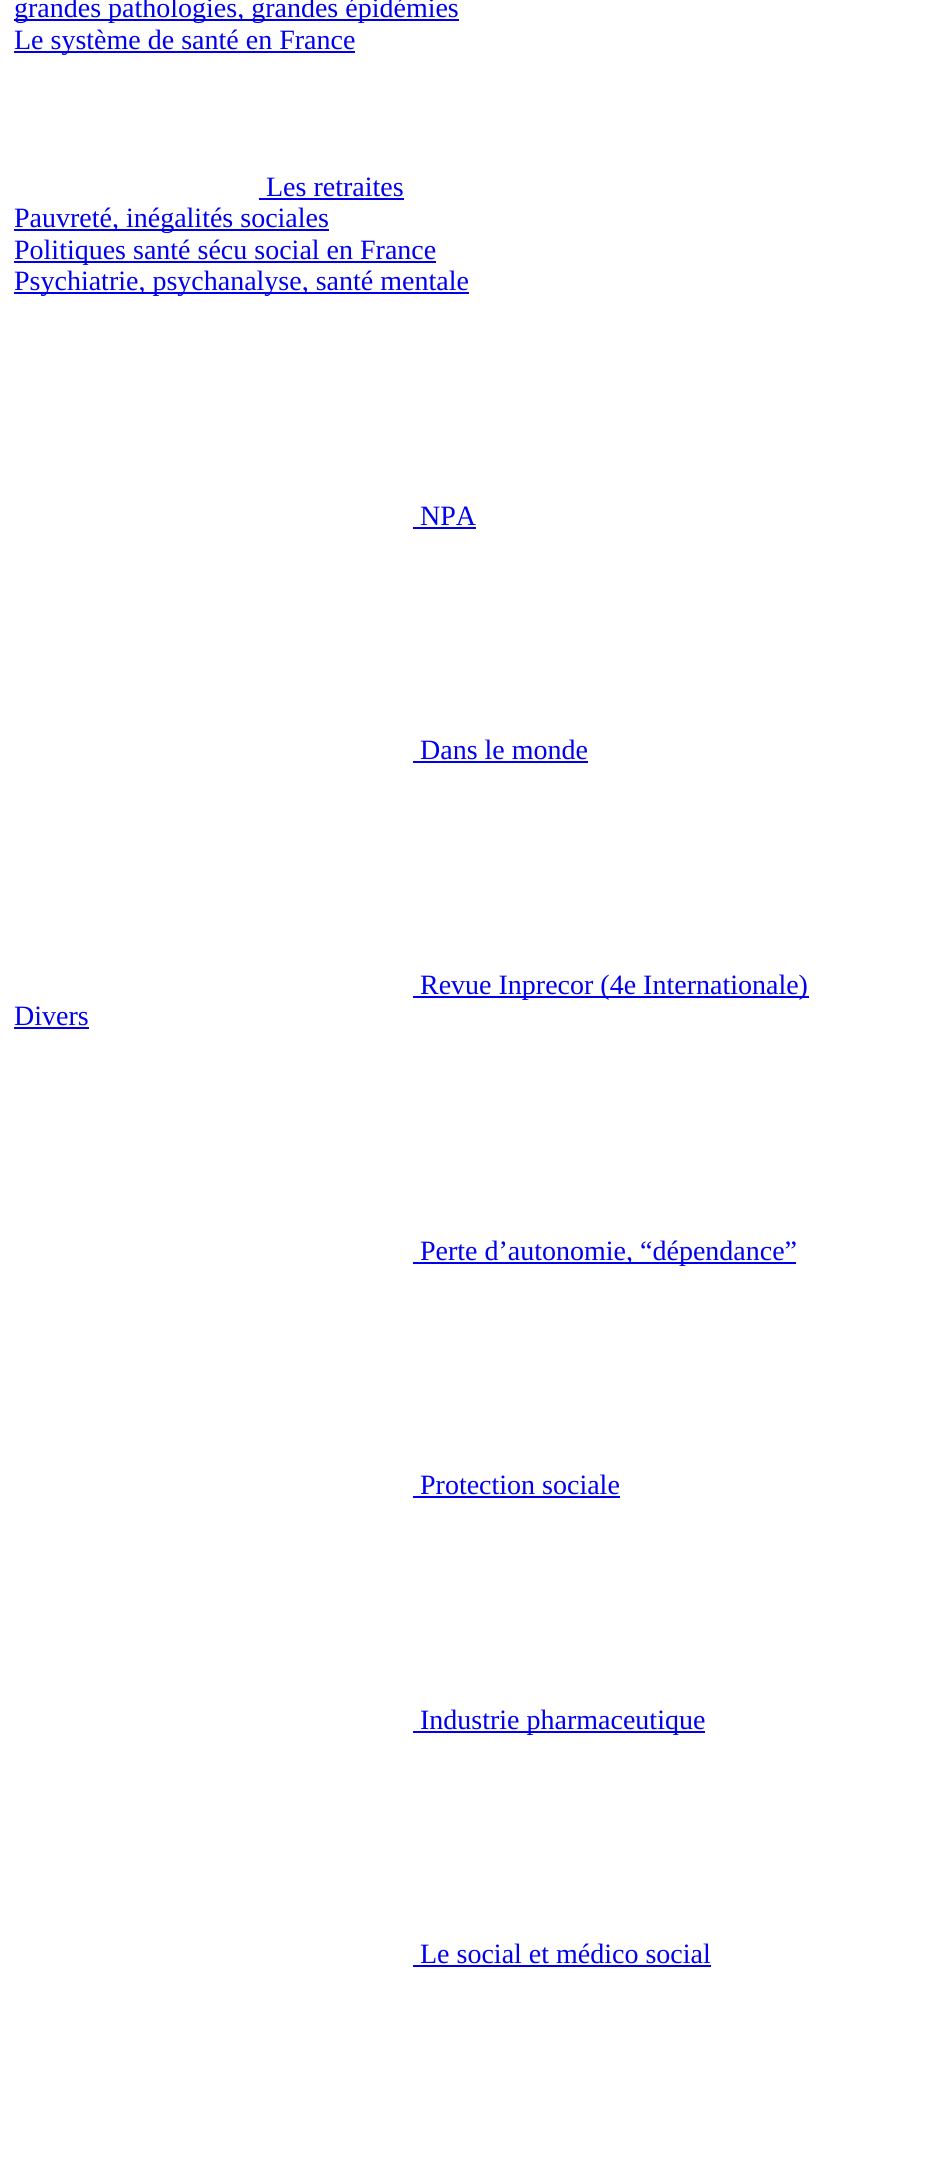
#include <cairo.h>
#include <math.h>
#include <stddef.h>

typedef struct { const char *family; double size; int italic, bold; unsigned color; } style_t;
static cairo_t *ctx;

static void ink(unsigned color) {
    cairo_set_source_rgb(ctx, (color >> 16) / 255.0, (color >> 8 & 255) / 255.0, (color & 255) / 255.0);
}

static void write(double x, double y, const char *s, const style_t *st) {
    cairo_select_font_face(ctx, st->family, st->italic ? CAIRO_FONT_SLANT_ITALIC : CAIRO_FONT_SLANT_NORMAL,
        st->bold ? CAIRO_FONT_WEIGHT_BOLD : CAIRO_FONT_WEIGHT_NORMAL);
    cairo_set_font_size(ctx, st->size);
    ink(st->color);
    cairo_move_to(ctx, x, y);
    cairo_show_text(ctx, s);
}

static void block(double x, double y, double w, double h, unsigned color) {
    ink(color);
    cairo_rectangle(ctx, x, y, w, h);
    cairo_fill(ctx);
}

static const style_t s1 = {"Liberation Serif", 28, 0, 0, 0x0000ee};

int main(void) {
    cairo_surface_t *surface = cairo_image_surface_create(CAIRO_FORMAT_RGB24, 939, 2160);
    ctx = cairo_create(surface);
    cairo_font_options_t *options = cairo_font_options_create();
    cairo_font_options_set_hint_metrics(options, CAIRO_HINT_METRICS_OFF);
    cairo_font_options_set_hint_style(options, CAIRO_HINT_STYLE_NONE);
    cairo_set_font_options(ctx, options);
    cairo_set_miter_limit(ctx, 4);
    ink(0xffffff);
    cairo_paint(ctx);
    block(14, 19, 445, 2, 0x0000ee);
    write(14, 17, "grandes pathologies, grandes épidémies", &s1);
    block(14, 51, 341, 2, 0x0000ee);
    write(14, 49, "Le système de santé en France", &s1);
    write(266, 196, "Les retraites", &s1);
    block(259, 198, 145, 2, 0x0000ee);
    block(14, 229, 315, 2, 0x0000ee);
    write(14, 227, "Pauvreté, inégalités sociales", &s1);
    block(14, 261, 422, 2, 0x0000ee);
    write(14, 259, "Politiques santé sécu social en France", &s1);
    block(14, 292, 455, 2, 0x0000ee);
    write(14, 290, "Psychiatrie, psychanalyse, santé mentale", &s1);
    write(420, 525, "NPA", &s1);
    block(413, 527, 63, 2, 0x0000ee);
    write(420, 759, "Dans le monde", &s1);
    block(413, 761, 175, 2, 0x0000ee);
    block(413, 996, 396, 2, 0x0000ee);
    write(420, 994, "Revue Inprecor (4e Internationale)", &s1);
    write(14, 1025, "Divers", &s1);
    block(14, 1027, 75, 2, 0x0000ee);
    block(413, 1262, 383, 2, 0x0000ee);
    write(420, 1260, "Perte d’autonomie, “dépendance”", &s1);
    write(420, 1494, "Protection sociale", &s1);
    block(413, 1496, 207, 2, 0x0000ee);
    block(413, 1731, 292, 2, 0x0000ee);
    write(420, 1729, "Industrie pharmaceutique", &s1);
    write(420, 1963, "Le social et médico social", &s1);
    block(413, 1965, 298, 2, 0x0000ee);
    cairo_surface_write_to_png(surface, "screenshot.png");
    cairo_font_options_destroy(options);
    cairo_destroy(ctx);
    cairo_surface_destroy(surface);
    return 0;
}
